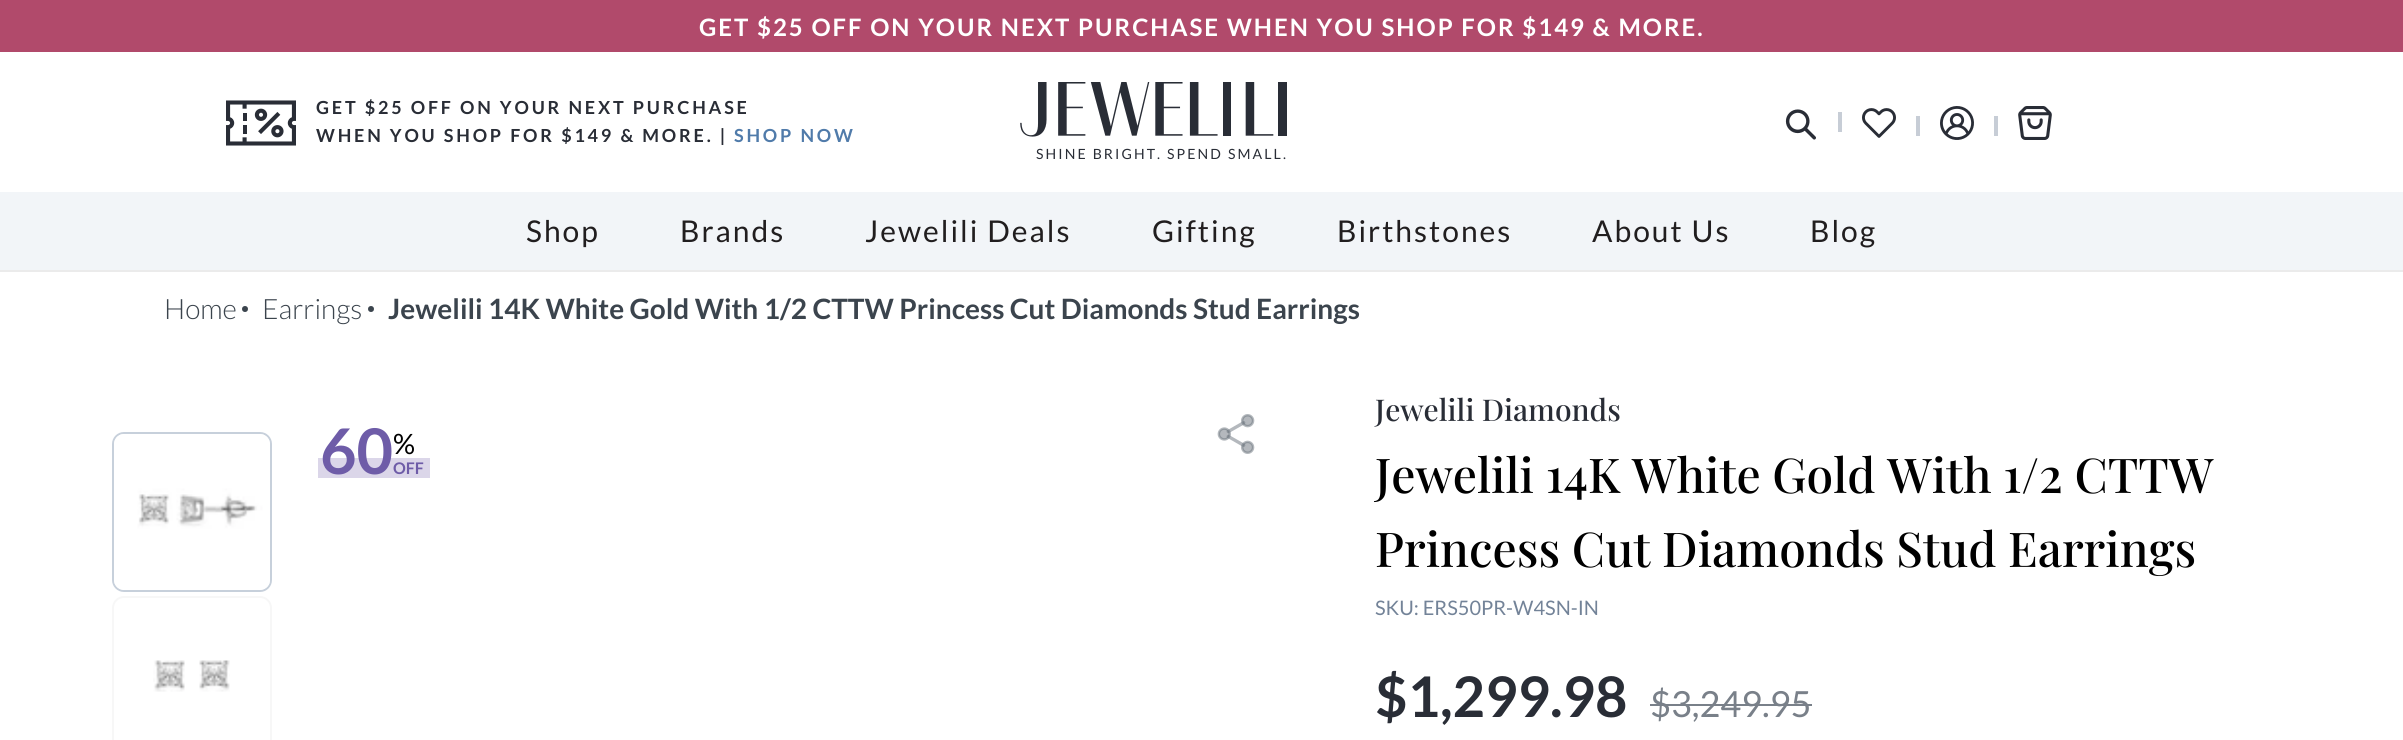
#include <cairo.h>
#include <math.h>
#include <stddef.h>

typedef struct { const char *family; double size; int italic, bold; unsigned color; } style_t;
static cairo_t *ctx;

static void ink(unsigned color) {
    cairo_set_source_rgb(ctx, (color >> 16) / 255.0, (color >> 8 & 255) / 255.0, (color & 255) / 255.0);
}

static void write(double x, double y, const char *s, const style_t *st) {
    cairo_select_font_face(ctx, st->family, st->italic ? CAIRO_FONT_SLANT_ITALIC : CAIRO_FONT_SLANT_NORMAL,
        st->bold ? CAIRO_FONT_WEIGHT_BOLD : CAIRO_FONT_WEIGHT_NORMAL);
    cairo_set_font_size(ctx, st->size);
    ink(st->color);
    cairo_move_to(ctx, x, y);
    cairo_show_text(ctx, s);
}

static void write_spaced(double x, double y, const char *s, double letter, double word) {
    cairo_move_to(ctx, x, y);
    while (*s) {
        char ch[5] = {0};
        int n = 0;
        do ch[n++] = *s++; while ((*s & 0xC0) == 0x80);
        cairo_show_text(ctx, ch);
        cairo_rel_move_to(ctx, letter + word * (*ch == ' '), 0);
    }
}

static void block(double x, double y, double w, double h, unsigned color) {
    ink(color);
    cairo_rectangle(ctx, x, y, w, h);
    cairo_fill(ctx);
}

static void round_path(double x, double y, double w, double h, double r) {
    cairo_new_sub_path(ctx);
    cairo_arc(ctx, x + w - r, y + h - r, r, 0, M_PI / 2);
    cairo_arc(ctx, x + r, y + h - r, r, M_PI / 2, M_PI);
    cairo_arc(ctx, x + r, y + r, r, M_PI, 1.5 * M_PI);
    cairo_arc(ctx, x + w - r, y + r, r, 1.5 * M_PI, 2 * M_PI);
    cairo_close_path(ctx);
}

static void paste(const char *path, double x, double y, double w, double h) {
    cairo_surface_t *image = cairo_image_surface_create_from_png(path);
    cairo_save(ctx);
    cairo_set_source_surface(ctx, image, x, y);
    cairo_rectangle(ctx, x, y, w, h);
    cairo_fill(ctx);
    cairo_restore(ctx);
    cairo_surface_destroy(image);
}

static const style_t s1 = {"Lato Light", 28, 0, 0, 0x3b444d};
static const style_t s2 = {"Lato", 28, 0, 1, 0x3b444d};
static const style_t s3 = {"Lato", 63, 0, 1, 0x6e5ca8};
static const style_t s4 = {"Lato", 28, 0, 0, 0x000000};
static const style_t s5 = {"Lato", 16, 0, 1, 0x6e5ca8};
static const style_t s6 = {"Playfair Display Medium", 30, 0, 0, 0x292d36};
static const style_t s7 = {"Playfair Display Medium", 48, 0, 0, 0x000000};
static const style_t s8 = {"Lato", 20, 0, 0, 0x738398};
static const style_t s9 = {"Lato", 56, 0, 1, 0x292d36};
static const style_t s10 = {"Lato", 36, 0, 0, 0x798089};

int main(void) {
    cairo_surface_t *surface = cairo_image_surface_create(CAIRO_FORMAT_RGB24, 2403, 740);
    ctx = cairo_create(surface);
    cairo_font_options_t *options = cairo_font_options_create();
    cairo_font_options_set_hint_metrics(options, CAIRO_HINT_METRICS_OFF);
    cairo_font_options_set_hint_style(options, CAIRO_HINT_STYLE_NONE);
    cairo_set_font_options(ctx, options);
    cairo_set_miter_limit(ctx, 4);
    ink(0xffffff);
    cairo_paint(ctx);
    block(0, 0, 2403, 52, 0xb14a6b);
    cairo_select_font_face(ctx, "Lato", CAIRO_FONT_SLANT_NORMAL, CAIRO_FONT_WEIGHT_BOLD);
    cairo_set_font_size(ctx, 24);
    ink(0xffffff);
    write_spaced(699, 36, "GET $25 OFF ON YOUR NEXT PURCHASE WHEN YOU SHOP FOR $149 & MORE.", 2, 0);
    paste("pic1.png", 226, 100, 70, 46);
    cairo_set_font_size(ctx, 18);
    ink(0x292d36);
    write_spaced(316, 114, "GET $25 OFF ON YOUR NEXT PURCHASE", 2.8, 0);
    write_spaced(316, 142, "WHEN YOU SHOP FOR $149 & MORE. |", 2.8, 0);
    ink(0x507baa);
    write_spaced(734, 142, "SHOP NOW", 2.8, 0);
    paste("pic2.png", 1785, 109, 31, 31);
    block(1838, 112, 4, 20, 0xc7cdd6);
    paste("pic3.png", 1862, 108, 34, 30);
    block(1916, 116, 4, 20, 0xc7cdd6);
    paste("pic4.png", 1940, 106, 34, 34);
    block(1994, 116, 4, 20, 0xc7cdd6);
    paste("pic5.png", 2018, 106, 34, 34);
    paste("pic6.png", 1020, 82, 267, 55);
    cairo_select_font_face(ctx, "Lato", CAIRO_FONT_SLANT_NORMAL, CAIRO_FONT_WEIGHT_NORMAL);
    cairo_set_font_size(ctx, 14.1);
    ink(0x292d36);
    write_spaced(1036, 159, "SHINE BRIGHT. SPEND SMALL.", 2.1, 0);
    block(0, 192, 2403, 78, 0xf2f5f8);
    block(0, 270, 2403, 2, 0xebebeb);
    cairo_set_font_size(ctx, 30);
    ink(0x211e1f);
    write_spaced(526, 242, "Shop", 2, 0);
    write_spaced(680, 242, "Brands", 2, 0);
    write_spaced(865, 242, "Jewelili Deals", 2, 0);
    write_spaced(1152, 242, "Gifting", 2, 0);
    write_spaced(1337, 242, "Birthstones", 2, 0);
    write_spaced(1592, 242, "About Us", 2, 0);
    write_spaced(1810, 242, "Blog", 2, 0);
    write(164, 319, "Home", &s1);
    cairo_new_path(ctx);
    cairo_arc(ctx, 245, 309, 3, 0, 2 * M_PI);
    cairo_fill(ctx);
    write(262, 319, "Earrings", &s1);
    cairo_new_path(ctx);
    cairo_arc(ctx, 371, 309, 3, 0, 2 * M_PI);
    cairo_fill(ctx);
    write(388, 319, "Jewelili 14K White Gold With 1/2 CTTW Princess Cut Diamonds Stud Earrings", &s2);
    round_path(113, 433, 158, 158, 11);
    ink(0xc7d0db);
    cairo_stroke(ctx);
    paste("pic7.png", 114, 434, 156, 156);
    round_path(113, 597, 158, 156, 11);
    ink(0xf7f7f7);
    cairo_stroke(ctx);
    paste("pic8.png", 153, 660, 77, 32);
    block(318, 458, 112, 20, 0xdbd6e9);
    write(320, 474, "60", &s3);
    write(393, 454, "%", &s4);
    write(393, 474, "OFF", &s5);
    paste("pic9.png", 1217, 414, 38, 40);
    write(1375, 421, "Jewelili Diamonds", &s6);
    write(1375, 493, "Jewelili 14K White Gold With 1/2 CTTW", &s7);
    write(1375, 567, "Princess Cut Diamonds Stud Earrings", &s7);
    write(1375, 615, "SKU: ERS50PR-W4SN-IN", &s8);
    write(1375, 717, "$1,299.98", &s9);
    write(1650, 717, "$3,249.95", &s10);
    block(1650, 704, 162, 2, 0x798089);
    cairo_surface_write_to_png(surface, "screenshot.png");
    cairo_font_options_destroy(options);
    cairo_destroy(ctx);
    cairo_surface_destroy(surface);
    return 0;
}
